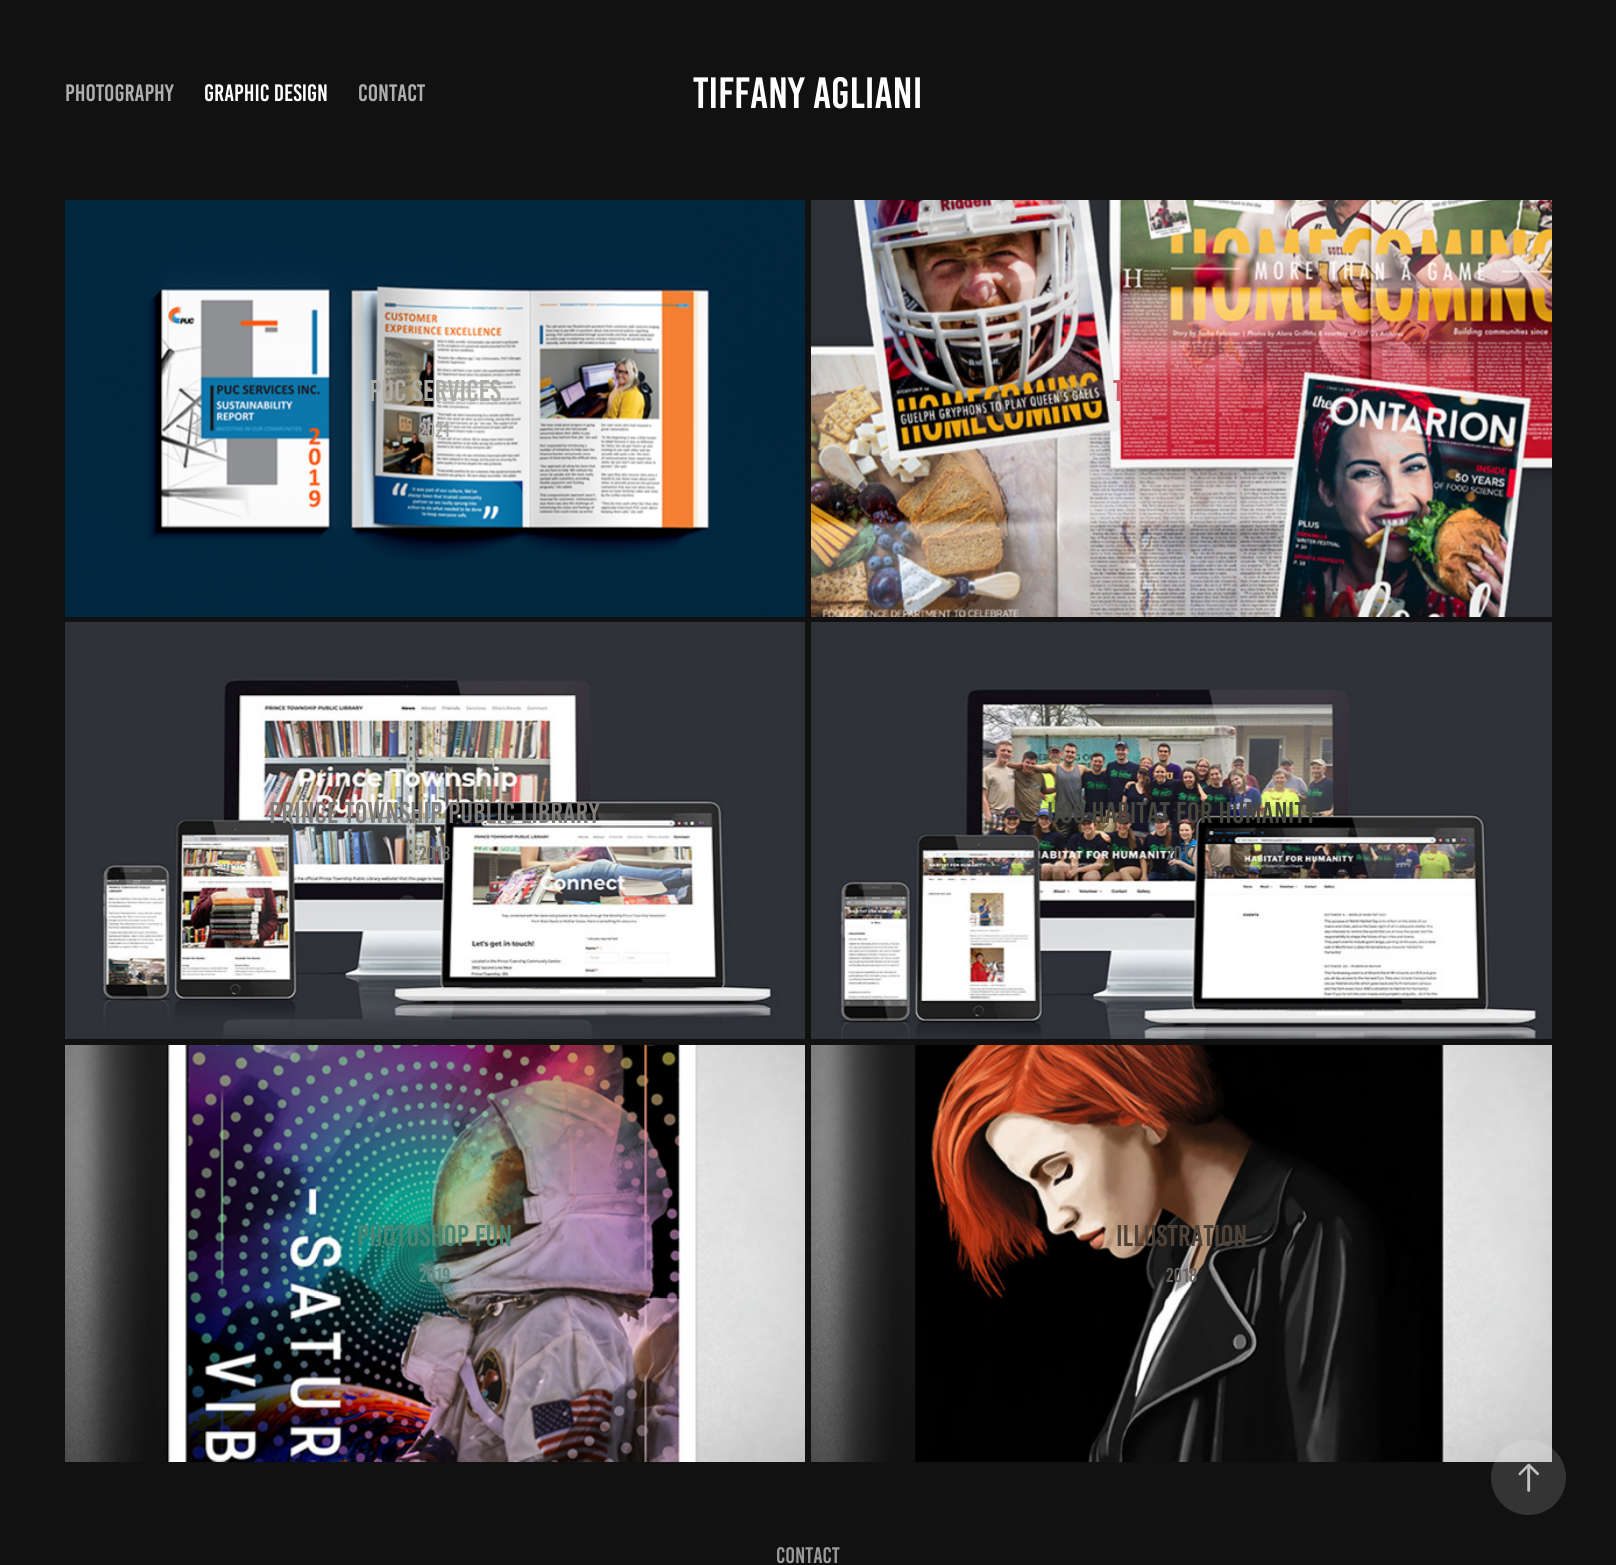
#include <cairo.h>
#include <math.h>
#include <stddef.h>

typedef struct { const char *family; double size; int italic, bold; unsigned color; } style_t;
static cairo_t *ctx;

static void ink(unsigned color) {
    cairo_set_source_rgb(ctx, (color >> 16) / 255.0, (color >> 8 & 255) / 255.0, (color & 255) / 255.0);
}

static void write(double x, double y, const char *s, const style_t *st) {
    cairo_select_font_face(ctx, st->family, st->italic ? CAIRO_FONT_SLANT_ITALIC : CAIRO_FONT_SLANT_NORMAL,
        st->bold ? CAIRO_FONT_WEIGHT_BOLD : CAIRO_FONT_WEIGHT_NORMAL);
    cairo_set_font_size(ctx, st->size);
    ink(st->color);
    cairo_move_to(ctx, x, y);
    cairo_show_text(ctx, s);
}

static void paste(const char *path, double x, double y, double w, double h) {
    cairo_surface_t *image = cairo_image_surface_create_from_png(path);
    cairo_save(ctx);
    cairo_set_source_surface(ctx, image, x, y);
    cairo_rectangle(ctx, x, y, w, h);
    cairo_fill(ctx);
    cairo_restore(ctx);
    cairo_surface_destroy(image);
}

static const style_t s1 = {"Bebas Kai", 23.75, 0, 0, 0xaeaeae};
static const style_t s2 = {"Bebas Kai", 23.75, 0, 0, 0xffffff};
static const style_t s3 = {"Bebas Kai", 43.75, 0, 0, 0xffffff};
static const style_t s4 = {"Bebas Kai", 30, 0, 0, 0xadaba6};
static const style_t s5 = {"Bebas Kai", 20, 0, 0, 0xadaba6};
static const style_t s6 = {"Bebas Kai", 30, 0, 0, 0xd15967};
static const style_t s7 = {"Bebas Kai", 30, 0, 0, 0x807d7b};
static const style_t s8 = {"Bebas Kai", 20, 0, 0, 0x747370};
static const style_t s9 = {"Bebas Kai", 30, 0, 0, 0x47473e};
static const style_t s10 = {"Bebas Kai", 20, 0, 0, 0x545b5f};
static const style_t s11 = {"Bebas Kai", 30, 0, 0, 0x498572};
static const style_t s12 = {"Bebas Kai", 20, 0, 0, 0x618a84};
static const style_t s13 = {"Bebas Kai", 30, 0, 0, 0x4d4138};
static const style_t s14 = {"Bebas Kai", 20, 0, 0, 0x65615f};
static const style_t s15 = {"Bebas Kai", 22.5, 0, 0, 0x999999};

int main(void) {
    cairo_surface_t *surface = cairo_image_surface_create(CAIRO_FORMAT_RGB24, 1616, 1565);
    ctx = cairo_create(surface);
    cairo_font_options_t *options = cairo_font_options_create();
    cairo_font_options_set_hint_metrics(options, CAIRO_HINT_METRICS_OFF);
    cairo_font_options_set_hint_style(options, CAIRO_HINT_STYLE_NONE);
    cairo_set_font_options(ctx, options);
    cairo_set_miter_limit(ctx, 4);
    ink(0x111111);
    cairo_paint(ctx);
    write(65, 101, "PHOTOGRAPHY", &s1);
    write(204, 101, "GRAPHIC DESIGN", &s2);
    write(358, 101, "CONTACT", &s1);
    write(693, 108, "TIFFANY AGLIANI", &s3);
    paste("pic1.png", 65, 200, 740, 417);
    write(369, 401, "PUC SERVICES", &s4);
    write(419, 437, "2021", &s5);
    paste("pic2.png", 811, 200, 741, 417);
    write(1113, 401, "T", &s6);
    paste("pic3.png", 65, 622, 740, 417);
    write(269, 823, "PRINCE TOWNSHIP PUBLIC LIBRARY", &s7);
    write(419, 860, "2018", &s8);
    paste("pic4.png", 811, 622, 741, 417);
    write(1047, 823, "UOG HABITAT FOR HUMANITY", &s9);
    write(1166, 860, "2017", &s10);
    paste("pic5.png", 65, 1045, 740, 417);
    write(357, 1246, "PHOTOSHOP FUN", &s11);
    write(419, 1282, "2019", &s12);
    paste("pic6.png", 811, 1045, 741, 417);
    write(1116, 1246, "ILLUSTRATION", &s13);
    write(1166, 1282, "2018", &s14);
    cairo_set_source_rgba(ctx, 1, 1, 1, 0.15);
    cairo_new_path(ctx);
    cairo_arc(ctx, 1528.5, 1477.5, 37.5, 0, 2 * M_PI);
    cairo_fill(ctx);
    paste("pic7.png", 1518, 1463, 21, 29);
    write(776, 1563, "Contact", &s15);
    cairo_surface_write_to_png(surface, "screenshot.png");
    cairo_font_options_destroy(options);
    cairo_destroy(ctx);
    cairo_surface_destroy(surface);
    return 0;
}
